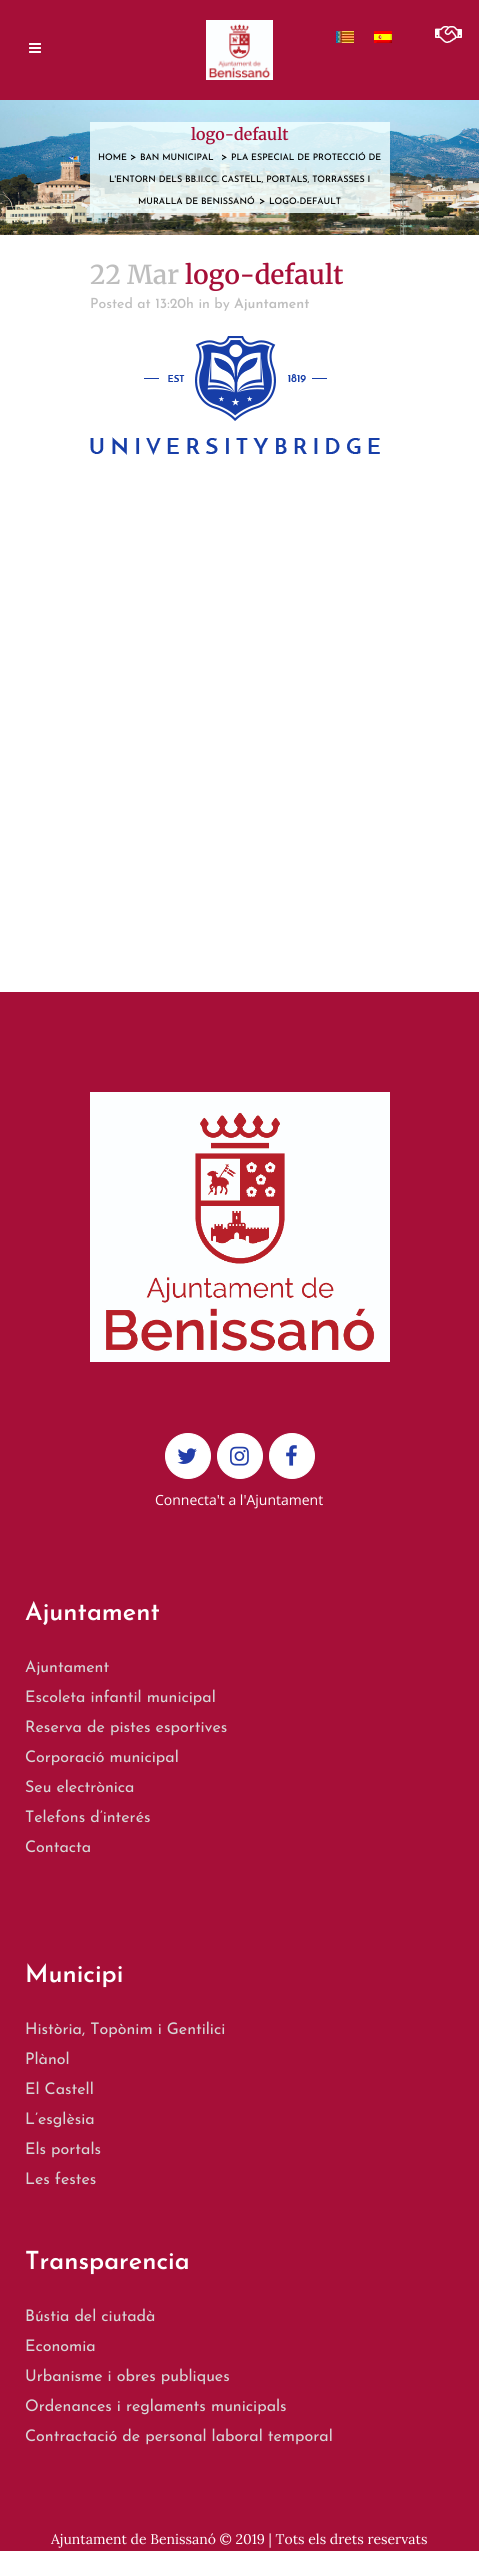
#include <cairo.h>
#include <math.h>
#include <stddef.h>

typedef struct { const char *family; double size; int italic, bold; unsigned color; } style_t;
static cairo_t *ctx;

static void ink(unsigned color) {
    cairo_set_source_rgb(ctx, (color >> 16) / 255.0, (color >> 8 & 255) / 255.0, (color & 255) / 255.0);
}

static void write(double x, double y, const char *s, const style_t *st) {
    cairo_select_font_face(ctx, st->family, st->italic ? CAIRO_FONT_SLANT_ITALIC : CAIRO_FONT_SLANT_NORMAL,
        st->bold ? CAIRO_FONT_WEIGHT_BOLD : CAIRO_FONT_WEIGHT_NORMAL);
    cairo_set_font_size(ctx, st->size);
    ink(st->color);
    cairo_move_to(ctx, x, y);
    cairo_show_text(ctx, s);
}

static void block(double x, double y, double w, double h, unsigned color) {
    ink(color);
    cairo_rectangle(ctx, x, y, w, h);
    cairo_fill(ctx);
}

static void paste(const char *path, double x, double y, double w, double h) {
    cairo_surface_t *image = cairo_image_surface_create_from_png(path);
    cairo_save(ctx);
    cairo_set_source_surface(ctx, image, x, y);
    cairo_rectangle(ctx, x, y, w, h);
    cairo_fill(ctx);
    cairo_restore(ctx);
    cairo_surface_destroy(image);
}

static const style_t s1 = {"Merriweather SemiBold", 16, 0, 0, 0xa60f38};
static const style_t s2 = {"Josefin Sans Medium", 8.95, 0, 0, 0x000000};
static const style_t s3 = {"Josefin Sans Medium", 11, 0, 0, 0x000000};
static const style_t s4 = {"Merriweather SemiBold", 26, 0, 0, 0xbebebe};
static const style_t s5 = {"Merriweather SemiBold", 26, 0, 0, 0xa60f38};
static const style_t s6 = {"Josefin Sans Medium", 14, 0, 0, 0xbebebe};
static const style_t s7 = {"Josefin Sans SemiBold", 14, 0, 0, 0xbebebe};
static const style_t s8 = {"Open Sans", 14, 0, 0, 0xffffff};
static const style_t s9 = {"Josefin Sans SemiBold", 25, 0, 0, 0xffffff};
static const style_t s10 = {"Josefin Sans", 16, 0, 0, 0xd6d6d6};
static const style_t s11 = {"Lora", 14, 0, 0, 0xffffff};

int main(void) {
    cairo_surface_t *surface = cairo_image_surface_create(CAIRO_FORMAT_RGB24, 479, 2551);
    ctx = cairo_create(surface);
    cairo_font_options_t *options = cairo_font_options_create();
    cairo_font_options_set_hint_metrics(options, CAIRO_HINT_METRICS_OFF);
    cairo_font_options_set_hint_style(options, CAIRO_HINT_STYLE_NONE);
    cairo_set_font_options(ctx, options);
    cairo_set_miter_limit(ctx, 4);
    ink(0xffffff);
    cairo_paint(ctx);
    block(0, 0, 479, 100, 0xa60f38);
    paste("pic1.png", 29, 43, 12, 10);
    paste("pic2.png", 206, 20, 67, 60);
    paste("pic3.png", 336, 31, 18, 12);
    paste("pic4.png", 374, 31, 18, 12);
    paste("pic5.png", 435, 26, 27, 17);
    paste("pic6.png", 0, 100, 479, 135);
    cairo_set_source_rgba(ctx, 0.941, 1, 1, 0.85);
    cairo_rectangle(ctx, 90, 122, 300, 91);
    cairo_fill(ctx);
    write(191, 140, "logo-default", &s1);
    write(98, 160, "HOME", &s2);
    write(130, 160, ">", &s3);
    write(140, 160, "BAN MUNICIPAL", &s2);
    write(221, 160, ">", &s3);
    write(231, 160, "PLA ESPECIAL DE PROTECCIÓ DE", &s2);
    write(109, 182, "L'ENTORN DELS BB.II.CC. CASTELL, PORTALS, TORRASSES I", &s2);
    write(138, 204, "MURALLA DE BENISSANÓ", &s2);
    write(259, 204, ">", &s3);
    write(269, 204, "LOGO-DEFAULT", &s2);
    write(90, 284, "22 Mar", &s4);
    write(185, 284, "logo-default", &s5);
    write(90, 308, "Posted at 13:20h in by", &s6);
    write(234, 308, "Ajuntament", &s7);
    paste("pic7.png", 90, 336, 290, 119);
    block(0, 992, 479, 1559, 0xa60f38);
    paste("pic8.png", 90, 1092, 300, 270);
    ink(0xffffff);
    cairo_arc(ctx, 188, 1456, 22.5, 0, 2 * M_PI);
    cairo_fill_preserve(ctx);
    cairo_set_line_width(ctx, 1);
    cairo_stroke(ctx);
    paste("pic9.png", 177, 1448, 20, 16);
    cairo_arc(ctx, 240, 1456, 22.5, 0, 2 * M_PI);
    cairo_fill_preserve(ctx);
    cairo_stroke(ctx);
    paste("pic10.png", 230, 1446, 19, 20);
    cairo_arc(ctx, 292, 1456, 22.5, 0, 2 * M_PI);
    cairo_fill_preserve(ctx);
    cairo_stroke(ctx);
    paste("pic11.png", 286, 1445, 11, 21);
    write(155, 1505, "Connecta't a l'Ajuntament", &s8);
    write(25, 1620, "Ajuntament", &s9);
    write(25, 1672, "Ajuntament", &s10);
    write(25, 1702, "Escoleta infantil municipal", &s10);
    write(25, 1732, "Reserva de pistes esportives", &s10);
    write(25, 1762, "Corporació municipal", &s10);
    write(25, 1792, "Seu electrònica", &s10);
    write(25, 1822, "Telefons d’interés", &s10);
    write(25, 1852, "Contacta", &s10);
    write(25, 1982, "Municipi", &s9);
    write(25, 2034, "Història, Topònim i Gentilici", &s10);
    write(25, 2064, "Plànol", &s10);
    write(25, 2094, "El Castell", &s10);
    write(25, 2124, "L’esglèsia", &s10);
    write(25, 2154, "Els portals", &s10);
    write(25, 2184, "Les festes", &s10);
    write(25, 2269, "Transparencia", &s9);
    write(25, 2321, "Bústia del ciutadà", &s10);
    write(25, 2351, "Economia", &s10);
    write(25, 2381, "Urbanisme i obres publiques", &s10);
    write(25, 2411, "Ordenances i reglaments municipals", &s10);
    write(25, 2441, "Contractació de personal laboral temporal", &s10);
    write(51, 2544, "Ajuntament de Benissanó © 2019 | Tots els drets reservats", &s11);
    cairo_surface_write_to_png(surface, "screenshot.png");
    cairo_font_options_destroy(options);
    cairo_destroy(ctx);
    cairo_surface_destroy(surface);
    return 0;
}
